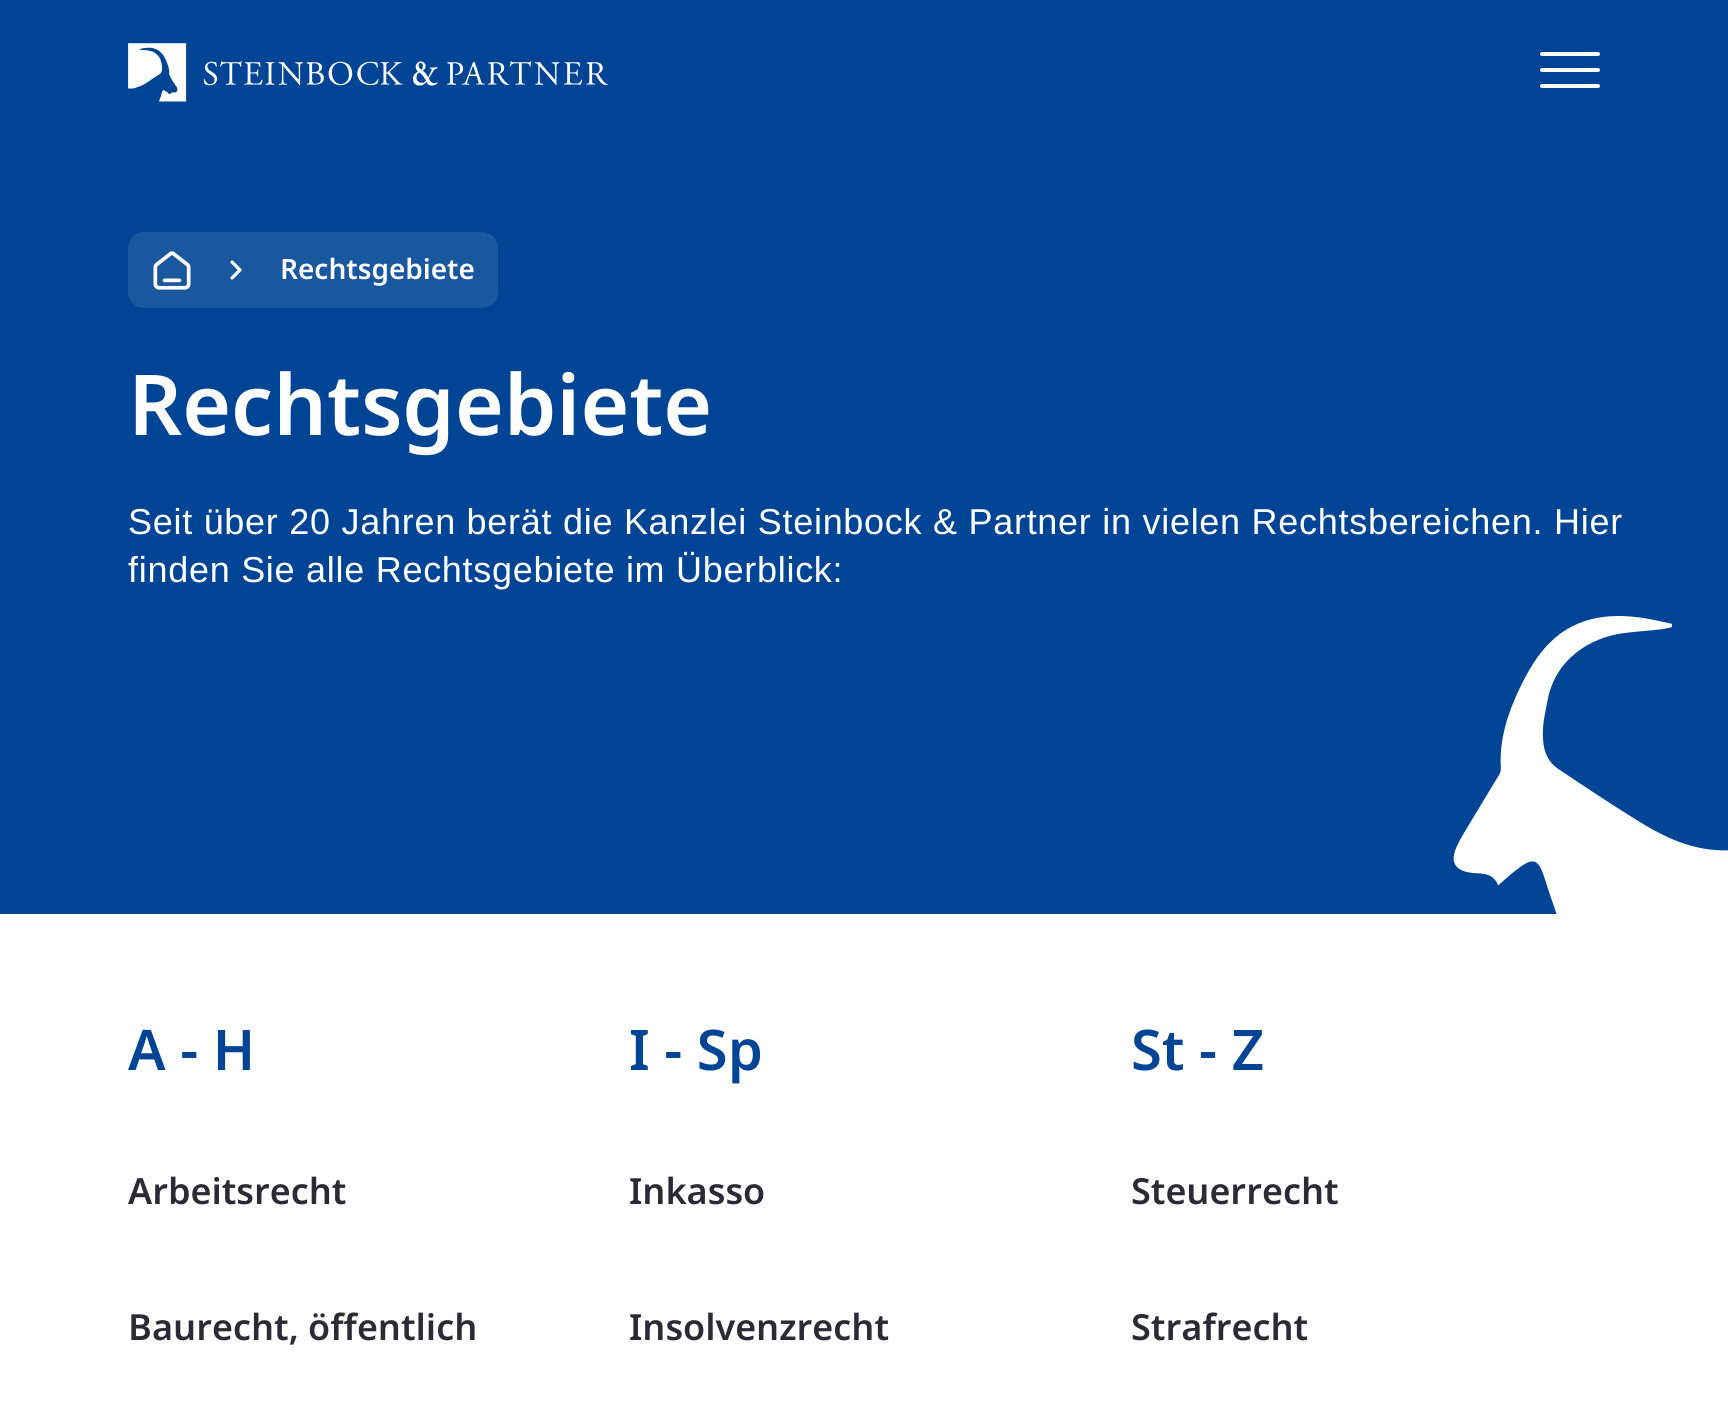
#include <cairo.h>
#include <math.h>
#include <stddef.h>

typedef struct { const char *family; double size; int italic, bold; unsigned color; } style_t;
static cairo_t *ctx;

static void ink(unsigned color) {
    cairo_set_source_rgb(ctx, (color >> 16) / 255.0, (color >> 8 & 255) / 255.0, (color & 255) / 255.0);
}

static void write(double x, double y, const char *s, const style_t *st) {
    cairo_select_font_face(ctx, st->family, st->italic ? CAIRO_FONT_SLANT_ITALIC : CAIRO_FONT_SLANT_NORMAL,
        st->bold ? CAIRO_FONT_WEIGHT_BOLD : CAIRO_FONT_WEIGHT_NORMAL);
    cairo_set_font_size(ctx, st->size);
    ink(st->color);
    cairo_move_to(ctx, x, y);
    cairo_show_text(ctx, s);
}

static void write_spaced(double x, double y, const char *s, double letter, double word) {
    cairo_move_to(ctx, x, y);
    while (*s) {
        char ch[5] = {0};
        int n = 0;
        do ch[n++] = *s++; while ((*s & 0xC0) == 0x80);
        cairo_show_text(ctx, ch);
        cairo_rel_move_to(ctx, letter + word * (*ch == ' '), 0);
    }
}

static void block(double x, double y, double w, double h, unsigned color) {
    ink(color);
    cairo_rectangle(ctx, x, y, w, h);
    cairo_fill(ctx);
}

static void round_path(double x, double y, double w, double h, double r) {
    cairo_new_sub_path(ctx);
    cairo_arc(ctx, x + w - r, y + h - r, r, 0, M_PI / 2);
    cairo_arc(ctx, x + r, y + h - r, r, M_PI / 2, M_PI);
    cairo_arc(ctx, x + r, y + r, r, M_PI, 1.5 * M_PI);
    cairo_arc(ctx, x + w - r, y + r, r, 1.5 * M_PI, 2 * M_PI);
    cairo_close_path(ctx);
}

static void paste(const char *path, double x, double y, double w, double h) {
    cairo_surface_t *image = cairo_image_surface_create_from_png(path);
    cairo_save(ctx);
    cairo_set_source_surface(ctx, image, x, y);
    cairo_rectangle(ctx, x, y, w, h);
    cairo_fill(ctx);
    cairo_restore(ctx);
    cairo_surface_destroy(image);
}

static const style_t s1 = {"Noto Sans SemiBold", 28, 0, 0, 0xffffff};
static const style_t s2 = {"Noto Sans SemiBold", 84, 0, 0, 0xffffff};
static const style_t s3 = {"Noto Sans SemiBold", 56, 0, 0, 0x004595};
static const style_t s4 = {"Noto Sans SemiBold", 36, 0, 0, 0x292c32};

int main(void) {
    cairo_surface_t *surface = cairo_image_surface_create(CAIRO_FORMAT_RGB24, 1728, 1403);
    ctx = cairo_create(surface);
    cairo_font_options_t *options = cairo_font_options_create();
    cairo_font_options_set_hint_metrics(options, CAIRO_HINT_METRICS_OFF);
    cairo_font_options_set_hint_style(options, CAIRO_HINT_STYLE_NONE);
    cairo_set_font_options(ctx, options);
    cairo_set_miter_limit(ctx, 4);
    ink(0xffffff);
    cairo_paint(ctx);
    block(0, 0, 1728, 914, 0x004595);
    paste("pic1.png", 128, 43, 480, 59);
    ink(0xffffff);
    round_path(1540, 52, 60, 4, 2);
    cairo_fill(ctx);
    round_path(1540, 68, 60, 4, 2);
    cairo_fill(ctx);
    round_path(1540, 84, 60, 4, 2);
    cairo_fill(ctx);
    ink(0x19579f);
    round_path(128, 232, 370, 76, 16);
    cairo_fill(ctx);
    paste("pic2.png", 153, 251, 38, 39);
    cairo_new_path(ctx);
    cairo_move_to(ctx, 232, 278);
    cairo_line_to(ctx, 240, 270);
    cairo_line_to(ctx, 232, 262);
    ink(0xffffff);
    cairo_set_line_width(ctx, 3.2);
    cairo_set_line_cap(ctx, CAIRO_LINE_CAP_ROUND);
    cairo_set_line_join(ctx, CAIRO_LINE_JOIN_ROUND);
    cairo_stroke(ctx);
    write(280, 279, "Rechtsgebiete", &s1);
    write(128, 435, "Rechtsgebiete", &s2);
    cairo_select_font_face(ctx, "Liberation Sans", CAIRO_FONT_SLANT_NORMAL, CAIRO_FONT_WEIGHT_NORMAL);
    cairo_set_font_size(ctx, 36);
    write_spaced(128, 534, "Seit über 20 Jahren berät die Kanzlei Steinbock & Partner in vielen Rechtsbereichen. Hier", 0.72, 0);
    write_spaced(128, 582, "finden Sie alle Rechtsgebiete im Überblick:", 0.72, 0);
    paste("pic3.png", 1453, 616, 275, 298);
    write(128, 1070, "A - H", &s3);
    write(128, 1204, "Arbeitsrecht", &s4);
    write(128, 1340, "Baurecht, öffentlich", &s4);
    write(629, 1070, "I - Sp", &s3);
    write(629, 1204, "Inkasso", &s4);
    write(629, 1340, "Insolvenzrecht", &s4);
    write(1131, 1070, "St - Z", &s3);
    write(1131, 1204, "Steuerrecht", &s4);
    write(1131, 1340, "Strafrecht", &s4);
    cairo_surface_write_to_png(surface, "screenshot.png");
    cairo_font_options_destroy(options);
    cairo_destroy(ctx);
    cairo_surface_destroy(surface);
    return 0;
}
